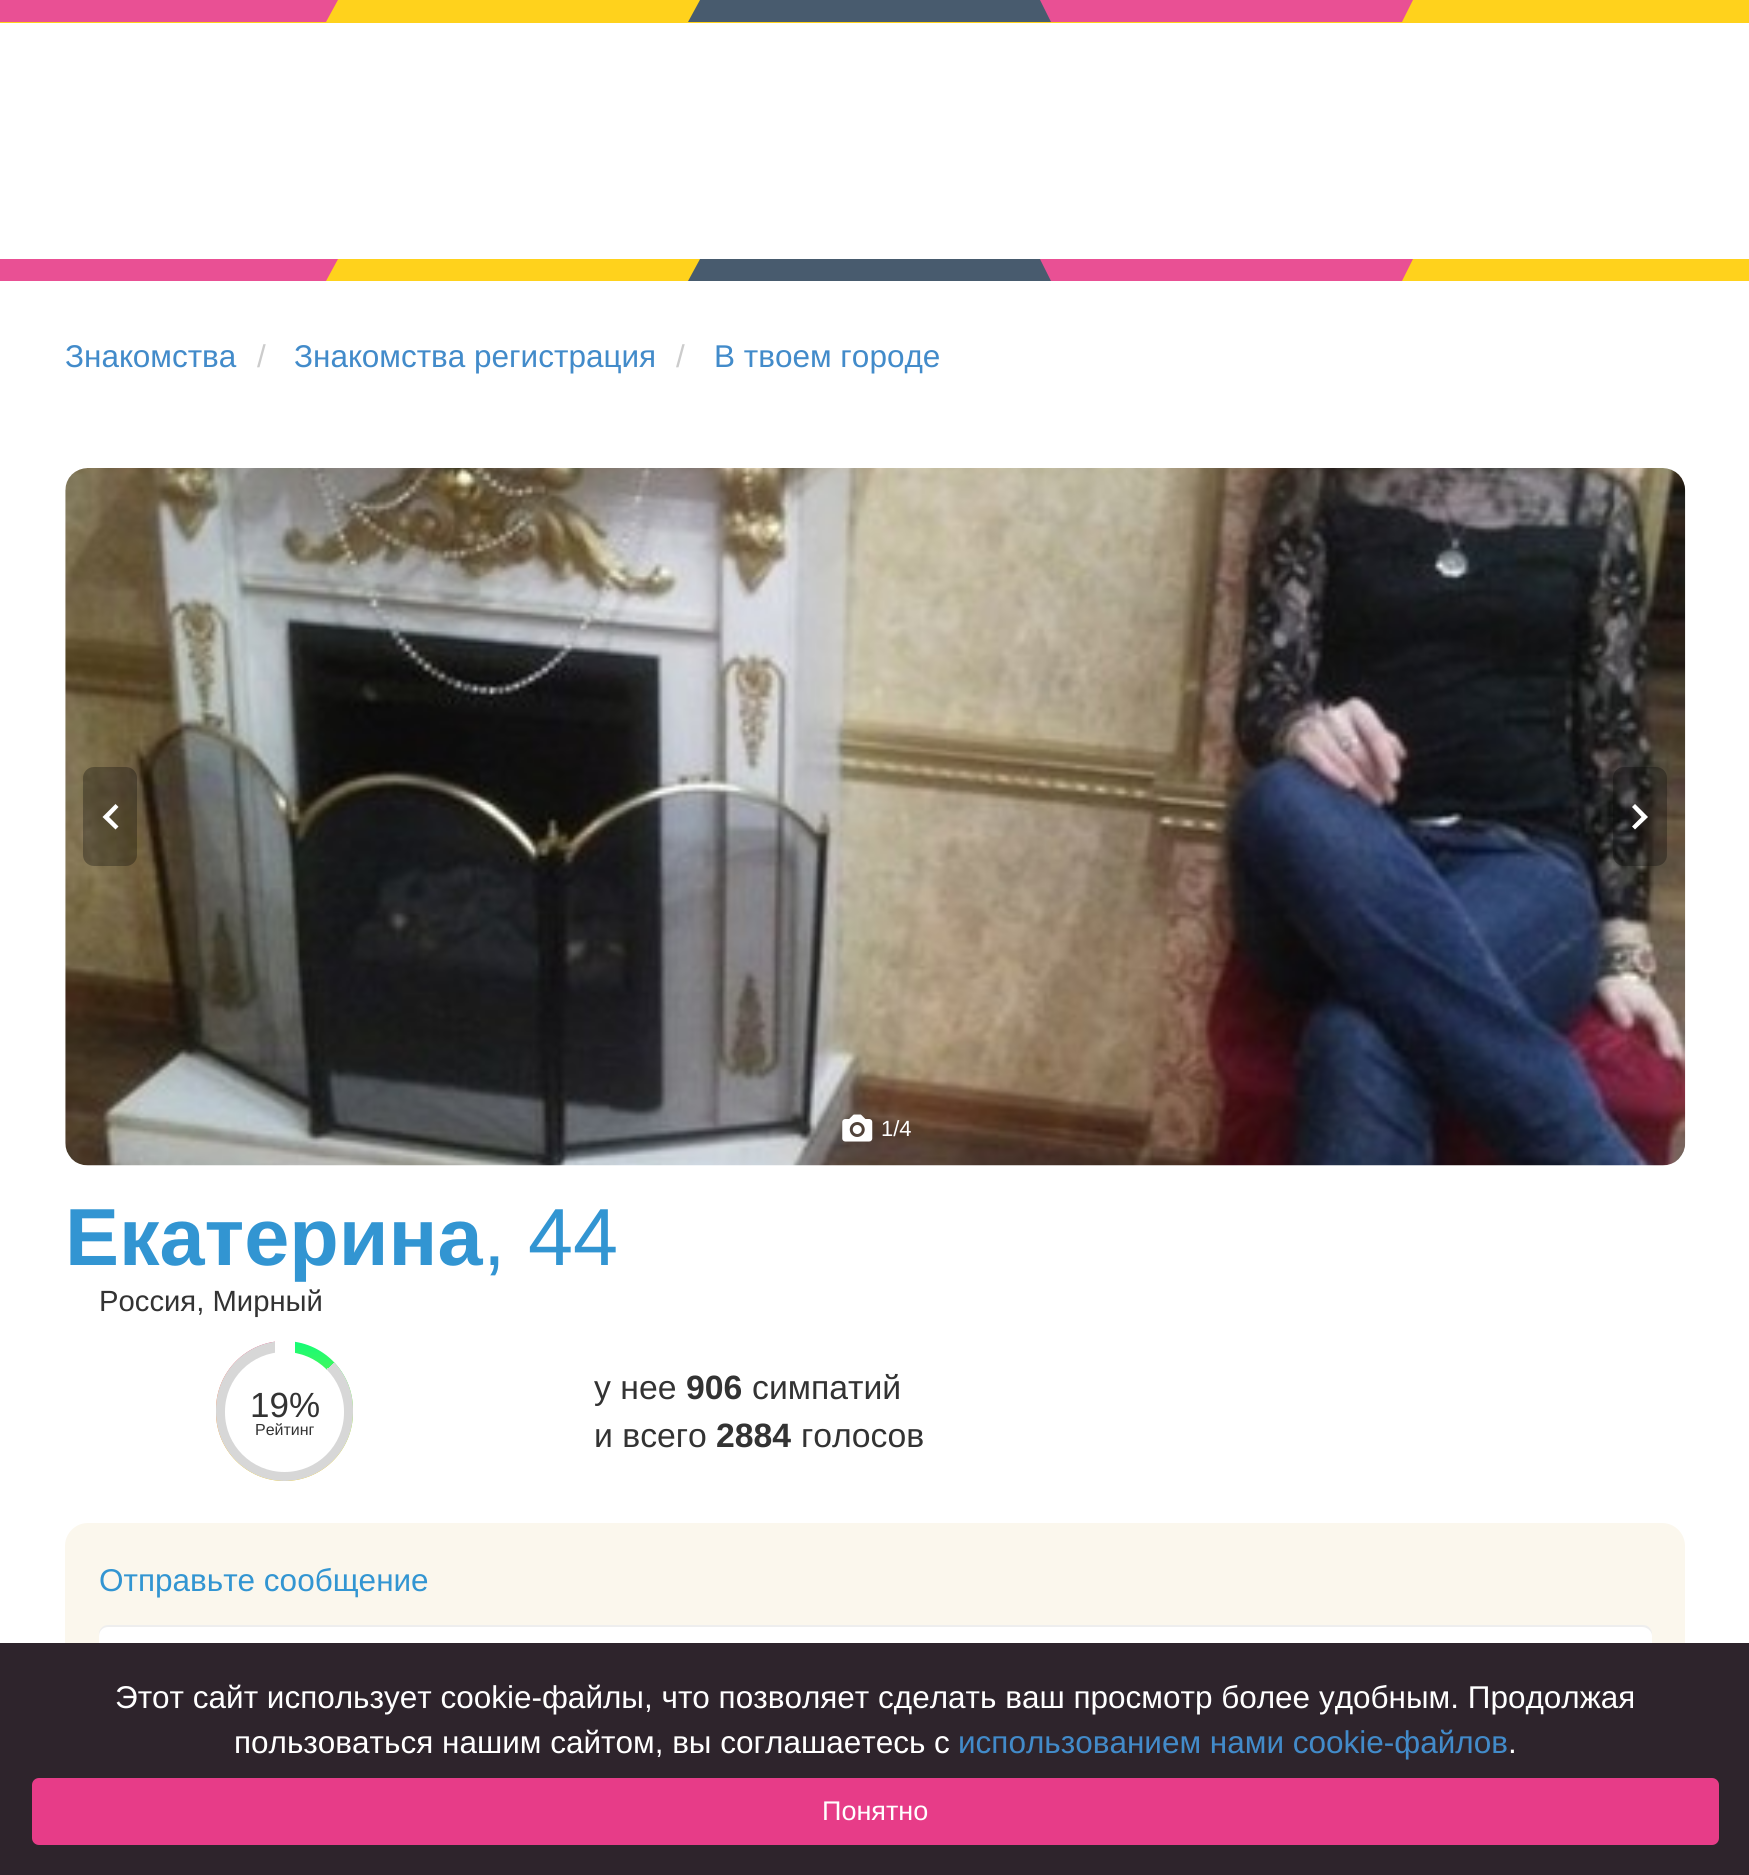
#include <cairo.h>
#include <math.h>
#include <stddef.h>

typedef struct { const char *family; double size; int italic, bold; unsigned color; } style_t;
static cairo_t *ctx;

static void ink(unsigned color) {
    cairo_set_source_rgb(ctx, (color >> 16) / 255.0, (color >> 8 & 255) / 255.0, (color & 255) / 255.0);
}

static void write(double x, double y, const char *s, const style_t *st) {
    cairo_select_font_face(ctx, st->family, st->italic ? CAIRO_FONT_SLANT_ITALIC : CAIRO_FONT_SLANT_NORMAL,
        st->bold ? CAIRO_FONT_WEIGHT_BOLD : CAIRO_FONT_WEIGHT_NORMAL);
    cairo_set_font_size(ctx, st->size);
    ink(st->color);
    cairo_move_to(ctx, x, y);
    cairo_show_text(ctx, s);
}

static void block(double x, double y, double w, double h, unsigned color) {
    ink(color);
    cairo_rectangle(ctx, x, y, w, h);
    cairo_fill(ctx);
}

static void round_path(double x, double y, double w, double h, double r) {
    cairo_new_sub_path(ctx);
    cairo_arc(ctx, x + w - r, y + h - r, r, 0, M_PI / 2);
    cairo_arc(ctx, x + r, y + h - r, r, M_PI / 2, M_PI);
    cairo_arc(ctx, x + r, y + r, r, M_PI, 1.5 * M_PI);
    cairo_arc(ctx, x + w - r, y + r, r, 1.5 * M_PI, 2 * M_PI);
    cairo_close_path(ctx);
}

static void paste(const char *path, double x, double y, double w, double h) {
    cairo_surface_t *image = cairo_image_surface_create_from_png(path);
    cairo_save(ctx);
    cairo_set_source_surface(ctx, image, x, y);
    cairo_rectangle(ctx, x, y, w, h);
    cairo_fill(ctx);
    cairo_restore(ctx);
    cairo_surface_destroy(image);
}

static const style_t s1 = {"Liberation Sans", 31.5, 0, 0, 0x428bca};
static const style_t s2 = {"Liberation Sans", 31.5, 0, 0, 0xcccccc};
static const style_t s3 = {"Liberation Sans", 22, 0, 0, 0xffffff};
static const style_t s4 = {"Liberation Sans", 81, 0, 1, 0x3295d2};
static const style_t s5 = {"Liberation Sans", 81, 0, 0, 0x3295d2};
static const style_t s6 = {"Liberation Sans", 29.25, 0, 0, 0x333333};
static const style_t s7 = {"Liberation Sans", 35, 0, 0, 0x333333};
static const style_t s8 = {"Liberation Sans", 16, 0, 0, 0x333333};
static const style_t s9 = {"Liberation Sans", 33.75, 0, 0, 0x333333};
static const style_t s10 = {"Liberation Sans", 33.75, 0, 1, 0x333333};
static const style_t s11 = {"Liberation Sans", 31.5, 0, 0, 0x3295d2};
static const style_t s12 = {"Liberation Sans", 31.5, 0, 0, 0xffffff};
static const style_t s13 = {"Liberation Sans", 27, 0, 0, 0xffffff};

int main(void) {
    cairo_surface_t *surface = cairo_image_surface_create(CAIRO_FORMAT_RGB24, 1749, 1875);
    ctx = cairo_create(surface);
    cairo_font_options_t *options = cairo_font_options_create();
    cairo_font_options_set_hint_metrics(options, CAIRO_HINT_METRICS_OFF);
    cairo_font_options_set_hint_style(options, CAIRO_HINT_STYLE_NONE);
    cairo_set_font_options(ctx, options);
    cairo_set_miter_limit(ctx, 4);
    cairo_pattern_t *gradient;
    ink(0xffffff);
    cairo_paint(ctx);
    block(0, 0, 1749, 23, 0xffd21c);
    ink(0xe95094);
    cairo_new_path(ctx);
    cairo_move_to(ctx, -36, 0);
    cairo_line_to(ctx, 338, 0);
    cairo_line_to(ctx, 326, 22);
    cairo_line_to(ctx, -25, 22);
    cairo_close_path(ctx);
    cairo_fill(ctx);
    ink(0x485b6e);
    cairo_new_path(ctx);
    cairo_move_to(ctx, 1062, 22);
    cairo_line_to(ctx, 688, 22);
    cairo_line_to(ctx, 700, 0);
    cairo_line_to(ctx, 1051, 0);
    cairo_close_path(ctx);
    cairo_fill(ctx);
    ink(0xe95094);
    cairo_new_path(ctx);
    cairo_move_to(ctx, 1040, 0);
    cairo_line_to(ctx, 1413, 0);
    cairo_line_to(ctx, 1402, 22);
    cairo_line_to(ctx, 1051, 22);
    cairo_close_path(ctx);
    cairo_fill(ctx);
    block(326, 259, 1423, 22, 0xffd21c);
    ink(0xe95094);
    cairo_new_path(ctx);
    cairo_move_to(ctx, -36, 259);
    cairo_line_to(ctx, 338, 259);
    cairo_line_to(ctx, 326, 281);
    cairo_line_to(ctx, -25, 281);
    cairo_close_path(ctx);
    cairo_fill(ctx);
    ink(0x485b6e);
    cairo_new_path(ctx);
    cairo_move_to(ctx, 1062, 281);
    cairo_line_to(ctx, 688, 281);
    cairo_line_to(ctx, 700, 259);
    cairo_line_to(ctx, 1051, 259);
    cairo_close_path(ctx);
    cairo_fill(ctx);
    ink(0xe95094);
    cairo_new_path(ctx);
    cairo_move_to(ctx, 1040, 259);
    cairo_line_to(ctx, 1413, 259);
    cairo_line_to(ctx, 1402, 281);
    cairo_line_to(ctx, 1051, 281);
    cairo_close_path(ctx);
    cairo_fill(ctx);
    write(65, 367, "Знакомства", &s1);
    write(257, 367, "/", &s2);
    write(294, 367, "Знакомства регистрация", &s1);
    write(676, 367, "/", &s2);
    write(714, 367, "В твоем городе", &s1);
    paste("pic1.png", 65, 468, 1621, 698);
    cairo_set_source_rgba(ctx, 0, 0, 0, 0.3);
    round_path(83, 767, 54, 99, 11);
    cairo_fill(ctx);
    ink(0xffffff);
    cairo_new_path(ctx);
    cairo_move_to(ctx, 115.5, 829.5);
    cairo_line_to(ctx, 102.5, 817);
    cairo_line_to(ctx, 115.5, 804);
    cairo_line_to(ctx, 118.5, 807);
    cairo_line_to(ctx, 109, 817);
    cairo_line_to(ctx, 118.5, 826.5);
    cairo_close_path(ctx);
    cairo_fill(ctx);
    cairo_set_source_rgba(ctx, 0, 0, 0, 0.3);
    round_path(1613, 767, 54, 99, 11);
    cairo_fill(ctx);
    ink(0xffffff);
    cairo_new_path(ctx);
    cairo_move_to(ctx, 1635, 829.5);
    cairo_line_to(ctx, 1648, 817);
    cairo_line_to(ctx, 1635, 804);
    cairo_line_to(ctx, 1632, 807);
    cairo_line_to(ctx, 1641.5, 817);
    cairo_line_to(ctx, 1632, 826.5);
    cairo_close_path(ctx);
    cairo_fill(ctx);
    paste("pic2.png", 842, 1114, 31, 28);
    write(881, 1136, "1/4", &s3);
    write(65, 1265, "Екатерина", &s4);
    write(483, 1265, ", 44", &s5);
    write(99, 1311, "Россия, Мирный", &s6);
    cairo_save(ctx);
    round_path(216, 1341, 137, 140, 68.5);
    cairo_clip(ctx);
    gradient = cairo_pattern_create_linear(319, 1480, 319, 1342);
    cairo_pattern_add_color_stop_rgba(gradient, 0.1, 0.988, 0.812, 0.012, 1);
    cairo_pattern_add_color_stop_rgba(gradient, 0.45, 0.553, 0.933, 0.2, 1);
    cairo_pattern_add_color_stop_rgba(gradient, 1, 0.078, 0.988, 0.463, 1);
    cairo_set_source(ctx, gradient);
    cairo_pattern_destroy(gradient);
    cairo_rectangle(ctx, 286, 1341, 67, 140);
    cairo_fill(ctx);
    gradient = cairo_pattern_create_linear(250, 1480, 250, 1342);
    cairo_pattern_add_color_stop_rgba(gradient, 0.1, 0.988, 0.812, 0.012, 1);
    cairo_pattern_add_color_stop_rgba(gradient, 0.5, 1, 0.529, 0.22, 1);
    cairo_pattern_add_color_stop_rgba(gradient, 1, 0.914, 0.267, 0.502, 1);
    cairo_set_source(ctx, gradient);
    cairo_pattern_destroy(gradient);
    cairo_new_path(ctx);
    cairo_move_to(ctx, 284.5, 1341);
    cairo_line_to(ctx, 286, 1341);
    cairo_line_to(ctx, 286, 1481);
    cairo_line_to(ctx, 284.5, 1481);
    cairo_curve_to(ctx, 246.5, 1481, 216, 1450.5, 216, 1412.5);
    cairo_line_to(ctx, 216, 1409.5);
    cairo_curve_to(ctx, 216, 1371.5, 246.5, 1341, 284.5, 1341);
    cairo_close_path(ctx);
    cairo_fill(ctx);
    gradient = cairo_pattern_create_linear(215, 1411, 285, 1342);
    cairo_pattern_add_color_stop_rgba(gradient, 0.5, 0.843, 0.843, 0.843, 0);
    cairo_pattern_add_color_stop_rgba(gradient, 0.5, 0.843, 0.843, 0.843, 1);
    cairo_set_source(ctx, gradient);
    cairo_pattern_destroy(gradient);
    cairo_new_path(ctx);
    cairo_move_to(ctx, 284.5, 1341);
    cairo_line_to(ctx, 286, 1341);
    cairo_line_to(ctx, 286, 1411);
    cairo_line_to(ctx, 216, 1411);
    cairo_line_to(ctx, 216, 1409.5);
    cairo_curve_to(ctx, 216, 1371.5, 246.5, 1341, 284.5, 1341);
    cairo_close_path(ctx);
    cairo_fill(ctx);
    gradient = cairo_pattern_create_linear(215, 1411, 285, 1342);
    cairo_pattern_add_color_stop_rgba(gradient, 0.5, 0.843, 0.843, 0.843, 1);
    cairo_pattern_add_color_stop_rgba(gradient, 0.5, 0.843, 0.843, 0.843, 0);
    cairo_set_source(ctx, gradient);
    cairo_pattern_destroy(gradient);
    cairo_new_path(ctx);
    cairo_move_to(ctx, 284.5, 1341);
    cairo_line_to(ctx, 286, 1341);
    cairo_line_to(ctx, 286, 1411);
    cairo_line_to(ctx, 216, 1411);
    cairo_line_to(ctx, 216, 1409.5);
    cairo_curve_to(ctx, 216, 1371.5, 246.5, 1341, 284.5, 1341);
    cairo_close_path(ctx);
    cairo_fill(ctx);
    gradient = cairo_pattern_create_linear(285, 1480, 215, 1411);
    cairo_pattern_add_color_stop_rgba(gradient, 0.5, 0.843, 0.843, 0.843, 0);
    cairo_pattern_add_color_stop_rgba(gradient, 0.5, 0.843, 0.843, 0.843, 1);
    cairo_set_source(ctx, gradient);
    cairo_pattern_destroy(gradient);
    cairo_new_path(ctx);
    cairo_move_to(ctx, 216, 1411);
    cairo_line_to(ctx, 286, 1411);
    cairo_line_to(ctx, 286, 1481);
    cairo_line_to(ctx, 284.5, 1481);
    cairo_curve_to(ctx, 246.5, 1481, 216, 1450.5, 216, 1412.5);
    cairo_close_path(ctx);
    cairo_fill(ctx);
    gradient = cairo_pattern_create_linear(285, 1480, 215, 1411);
    cairo_pattern_add_color_stop_rgba(gradient, 0.5, 0.843, 0.843, 0.843, 1);
    cairo_pattern_add_color_stop_rgba(gradient, 0.5, 0.843, 0.843, 0.843, 0);
    cairo_set_source(ctx, gradient);
    cairo_pattern_destroy(gradient);
    cairo_new_path(ctx);
    cairo_move_to(ctx, 216, 1411);
    cairo_line_to(ctx, 286, 1411);
    cairo_line_to(ctx, 286, 1481);
    cairo_line_to(ctx, 284.5, 1481);
    cairo_curve_to(ctx, 246.5, 1481, 216, 1450.5, 216, 1412.5);
    cairo_close_path(ctx);
    cairo_fill(ctx);
    gradient = cairo_pattern_create_linear(285, 1480, 354, 1411);
    cairo_pattern_add_color_stop_rgba(gradient, 0.5, 0.843, 0.843, 0.843, 1);
    cairo_pattern_add_color_stop_rgba(gradient, 0.5, 0.843, 0.843, 0.843, 0);
    cairo_set_source(ctx, gradient);
    cairo_pattern_destroy(gradient);
    cairo_rectangle(ctx, 286, 1453, 48, 28);
    cairo_fill(ctx);
    gradient = cairo_pattern_create_linear(285, 1480, 354, 1411);
    cairo_pattern_add_color_stop_rgba(gradient, 0.5, 0.843, 0.843, 0.843, 0);
    cairo_pattern_add_color_stop_rgba(gradient, 0.5, 0.843, 0.843, 0.843, 1);
    cairo_set_source(ctx, gradient);
    cairo_pattern_destroy(gradient);
    cairo_rectangle(ctx, 328, 1411, 25, 49);
    cairo_fill(ctx);
    gradient = cairo_pattern_create_linear(354, 1411, 285, 1342);
    cairo_pattern_add_color_stop_rgba(gradient, 0.5, 0.843, 0.843, 0.843, 1);
    cairo_pattern_add_color_stop_rgba(gradient, 0.5, 0.843, 0.843, 0.843, 0);
    cairo_set_source(ctx, gradient);
    cairo_pattern_destroy(gradient);
    cairo_rectangle(ctx, 327, 1362, 26, 49);
    cairo_fill(ctx);
    cairo_restore(ctx);
    block(275, 1341, 20, 12, 0xffffff);
    round_path(225, 1352, 119, 120, 59.5);
    cairo_fill(ctx);
    write(250, 1417, "19%", &s7);
    write(255, 1435, "Рейтинг", &s8);
    write(594, 1399, "у нее", &s9);
    write(686, 1399, "906", &s10);
    write(752, 1399, "симпатий", &s9);
    write(594, 1447, "и всего", &s9);
    write(716, 1447, "2884", &s10);
    write(801, 1447, "голосов", &s9);
    ink(0xfbf7ed);
    round_path(65, 1523, 1620, 351, 23);
    cairo_fill(ctx);
    write(99, 1591, "Отправьте сообщение", &s11);
    ink(0xffffff);
    round_path(99, 1625, 1553, 117, 9);
    cairo_fill(ctx);
    cairo_set_source_rgba(ctx, 0, 0, 0, 0.07);
    cairo_new_path(ctx);
    cairo_move_to(ctx, 108, 1627);
    cairo_line_to(ctx, 1642, 1627);
    cairo_curve_to(ctx, 1647, 1627, 1652, 1631, 1652, 1636);
    cairo_line_to(ctx, 1652, 1634);
    cairo_curve_to(ctx, 1652, 1629, 1648, 1625, 1643, 1625);
    cairo_line_to(ctx, 108, 1625);
    cairo_curve_to(ctx, 103, 1625, 99, 1629, 99, 1634);
    cairo_line_to(ctx, 99, 1636);
    cairo_curve_to(ctx, 99, 1631, 103, 1627, 108, 1627);
    cairo_close_path(ctx);
    cairo_fill(ctx);
    block(0, 1643, 1749, 232, 0x2e242c);
    write(115, 1708, "Этот сайт использует cookie-файлы, что позволяет сделать ваш просмотр более удобным. Продолжая", &s12);
    write(234, 1753, "пользоваться нашим сайтом, вы соглашаетесь с", &s12);
    write(958, 1753, "использованием нами cookie-файлов", &s1);
    write(1508, 1753, ".", &s12);
    ink(0xe73c88);
    round_path(33, 1779, 1685, 65, 6);
    cairo_fill_preserve(ctx);
    cairo_stroke(ctx);
    write(822, 1820, "Понятно", &s13);
    cairo_surface_write_to_png(surface, "screenshot.png");
    cairo_font_options_destroy(options);
    cairo_destroy(ctx);
    cairo_surface_destroy(surface);
    return 0;
}
